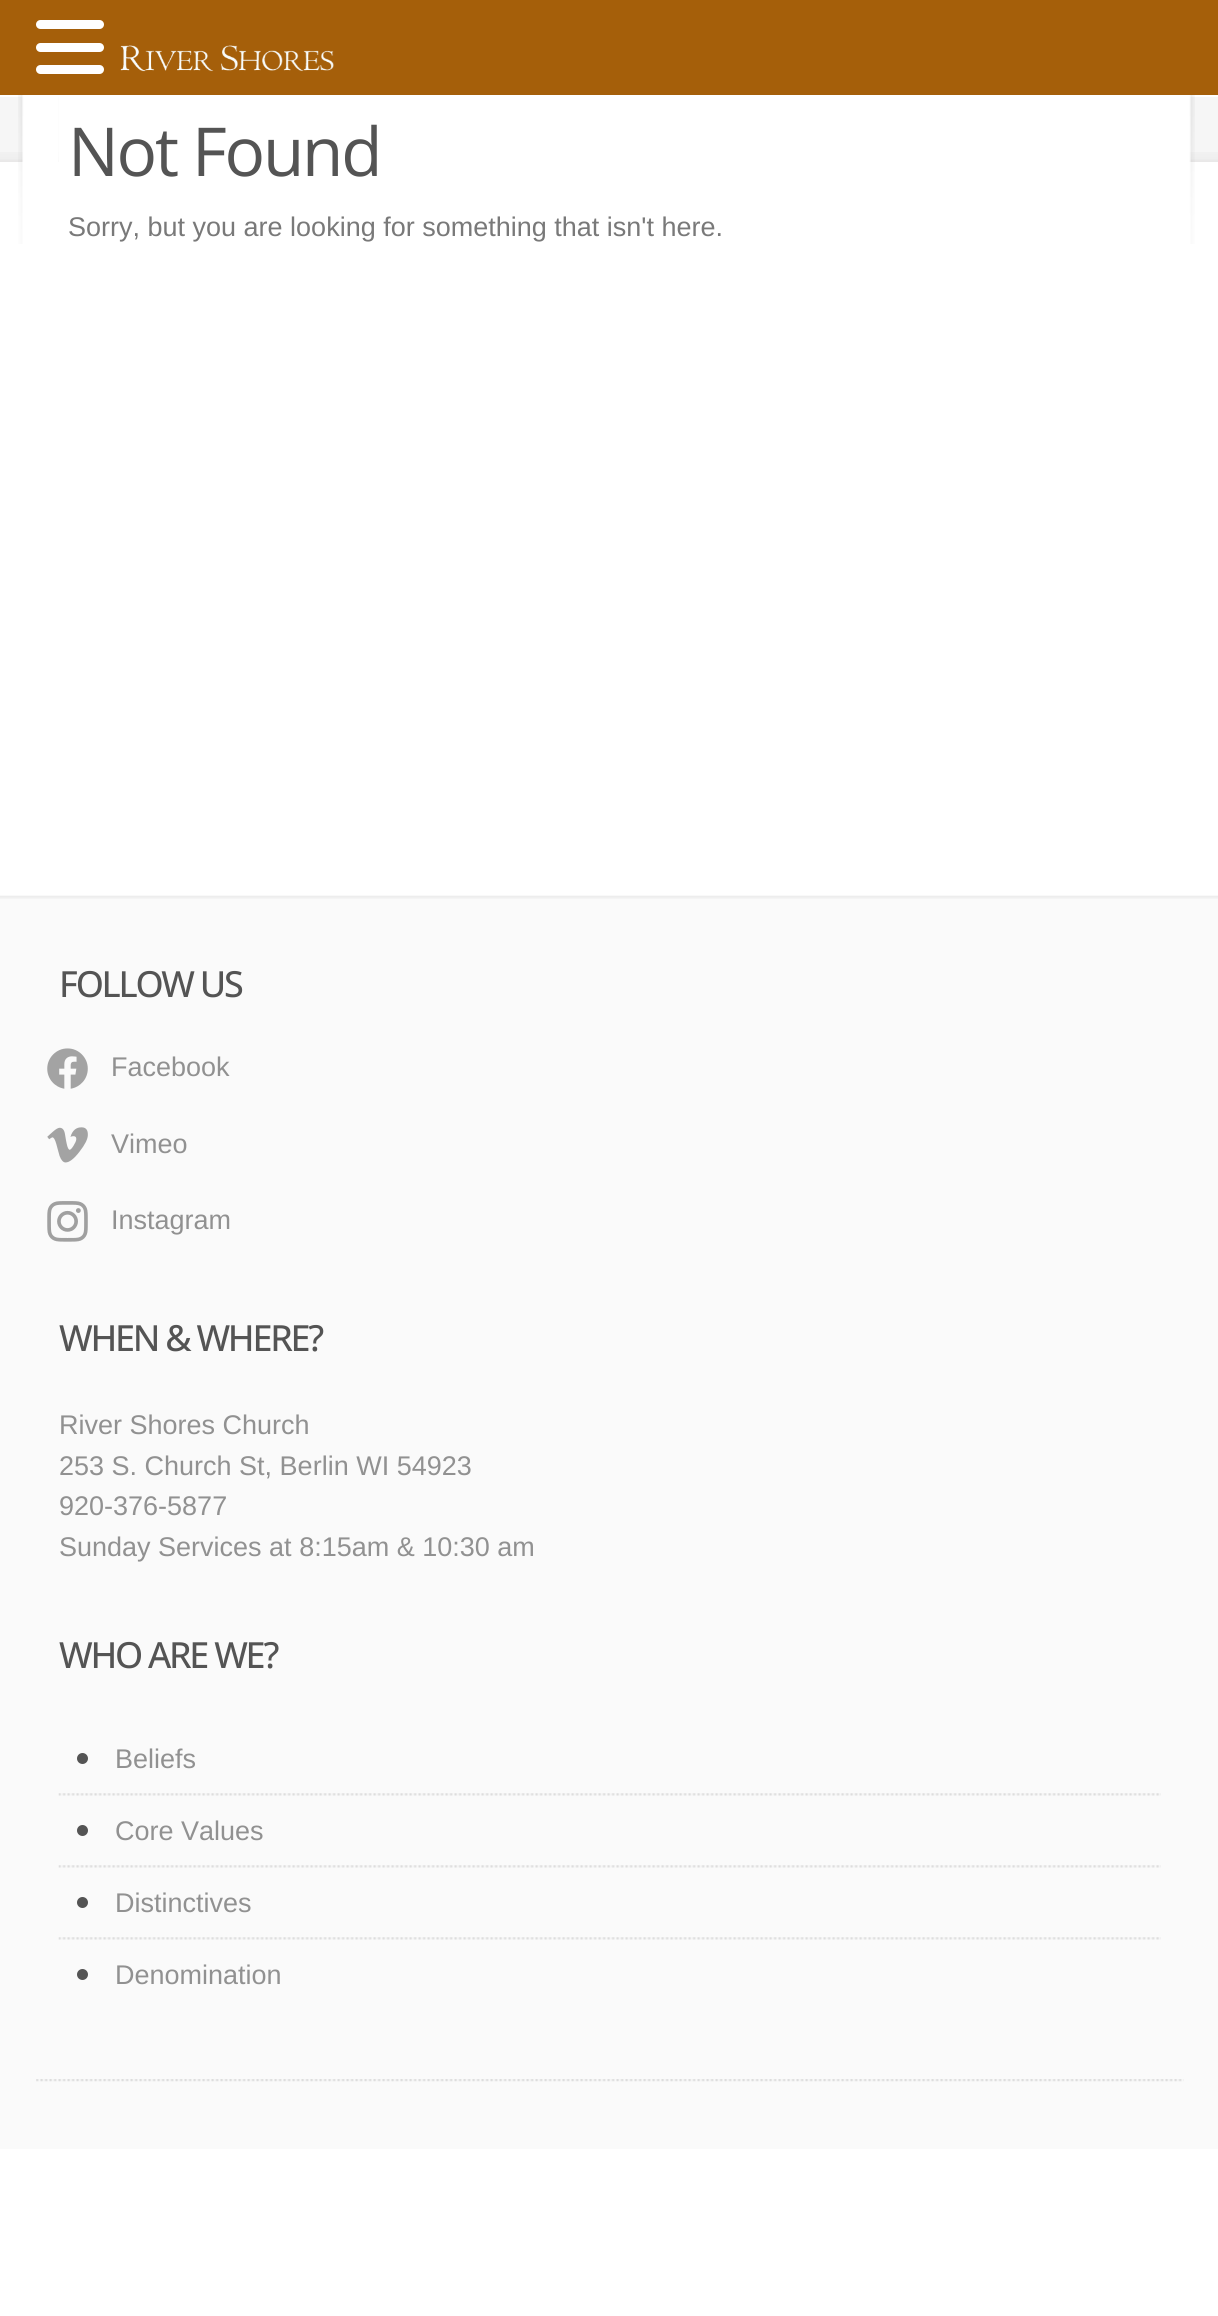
#include <cairo.h>
#include <math.h>
#include <stddef.h>

typedef struct { const char *family; double size; int italic, bold; unsigned color; } style_t;
static cairo_t *ctx;

static void ink(unsigned color) {
    cairo_set_source_rgb(ctx, (color >> 16) / 255.0, (color >> 8 & 255) / 255.0, (color & 255) / 255.0);
}

static void write(double x, double y, const char *s, const style_t *st) {
    cairo_select_font_face(ctx, st->family, st->italic ? CAIRO_FONT_SLANT_ITALIC : CAIRO_FONT_SLANT_NORMAL,
        st->bold ? CAIRO_FONT_WEIGHT_BOLD : CAIRO_FONT_WEIGHT_NORMAL);
    cairo_set_font_size(ctx, st->size);
    ink(st->color);
    cairo_move_to(ctx, x, y);
    cairo_show_text(ctx, s);
}

static void write_spaced(double x, double y, const char *s, double letter, double word) {
    cairo_move_to(ctx, x, y);
    while (*s) {
        char ch[5] = {0};
        int n = 0;
        do ch[n++] = *s++; while ((*s & 0xC0) == 0x80);
        cairo_show_text(ctx, ch);
        cairo_rel_move_to(ctx, letter + word * (*ch == ' '), 0);
    }
}

static void block(double x, double y, double w, double h, unsigned color) {
    ink(color);
    cairo_rectangle(ctx, x, y, w, h);
    cairo_fill(ctx);
}

static void round_path(double x, double y, double w, double h, double r) {
    cairo_new_sub_path(ctx);
    cairo_arc(ctx, x + w - r, y + h - r, r, 0, M_PI / 2);
    cairo_arc(ctx, x + r, y + h - r, r, M_PI / 2, M_PI);
    cairo_arc(ctx, x + r, y + r, r, M_PI, 1.5 * M_PI);
    cairo_arc(ctx, x + w - r, y + r, r, 1.5 * M_PI, 2 * M_PI);
    cairo_close_path(ctx);
}

static void paste(const char *path, double x, double y, double w, double h) {
    cairo_surface_t *image = cairo_image_surface_create_from_png(path);
    cairo_save(ctx);
    cairo_set_source_surface(ctx, image, x, y);
    cairo_rectangle(ctx, x, y, w, h);
    cairo_fill(ctx);
    cairo_restore(ctx);
    cairo_surface_destroy(image);
}

static const style_t s1 = {"Liberation Sans", 27, 0, 0, 0x797979};
static const style_t s2 = {"Liberation Sans", 27, 0, 0, 0x919191};

int main(void) {
    cairo_surface_t *surface = cairo_image_surface_create(CAIRO_FORMAT_RGB24, 1218, 2316);
    ctx = cairo_create(surface);
    cairo_font_options_t *options = cairo_font_options_create();
    cairo_font_options_set_hint_metrics(options, CAIRO_HINT_METRICS_OFF);
    cairo_font_options_set_hint_style(options, CAIRO_HINT_STYLE_NONE);
    cairo_set_font_options(ctx, options);
    cairo_set_miter_limit(ctx, 4);
    ink(0xffffff);
    cairo_paint(ctx);
    block(0, 0, 1218, 95, 0xa55f0a);
    ink(0xffffff);
    round_path(36, 43, 68, 9, 4.5);
    cairo_fill(ctx);
    round_path(36, 20, 68, 9, 4.5);
    cairo_fill(ctx);
    round_path(36, 65, 68, 9, 4.5);
    cairo_fill(ctx);
    paste("pic1.png", 120, 45, 214, 27);
    block(0, 97, 1218, 55, 0xf6f6f6);
    paste("pic2.png", 0, 152, 1218, 10);
    paste("pic4.png", 18, 95, 41, 149);
    paste("pic3.png", 58, 95, 1103, 67);
    cairo_select_font_face(ctx, "Open Sans", CAIRO_FONT_SLANT_NORMAL, CAIRO_FONT_WEIGHT_NORMAL);
    cairo_set_font_size(ctx, 67.5);
    ink(0x545454);
    write_spaced(68, 176, "Not Found", -2.25, 0);
    write(68, 236, "Sorry, but you are looking for something that isn't here.", &s1);
    paste("pic5.png", 1161, 95, 34, 149);
    block(0, 896, 1218, 1253, 0xfafafa);
    paste("pic6.png", 0, 895, 1218, 4);
    cairo_select_font_face(ctx, "Open Sans Medium", CAIRO_FONT_SLANT_NORMAL, CAIRO_FONT_WEIGHT_NORMAL);
    cairo_set_font_size(ctx, 36);
    ink(0x545454);
    write_spaced(59, 997, "FOLLOW US", -2.25, 0);
    paste("pic7.png", 47, 1048, 41, 41);
    write(111, 1076, "Facebook", &s2);
    paste("pic8.png", 47, 1127, 41, 36);
    write(111, 1153, "Vimeo", &s2);
    paste("pic9.png", 47, 1201, 41, 41);
    write(111, 1229, "Instagram", &s2);
    cairo_select_font_face(ctx, "Open Sans Medium", CAIRO_FONT_SLANT_NORMAL, CAIRO_FONT_WEIGHT_NORMAL);
    cairo_set_font_size(ctx, 36);
    ink(0x545454);
    write_spaced(59, 1351, "WHEN & WHERE?", -2.25, 0);
    write(59, 1434, "River Shores Church", &s2);
    write(59, 1475, "253 S. Church St, Berlin WI 54923", &s2);
    write(59, 1515, "920-376-5877", &s2);
    write(59, 1556, "Sunday Services at 8:15am & 10:30 am", &s2);
    cairo_select_font_face(ctx, "Open Sans Medium", CAIRO_FONT_SLANT_NORMAL, CAIRO_FONT_WEIGHT_NORMAL);
    cairo_set_font_size(ctx, 36);
    ink(0x545454);
    write_spaced(59, 1668, "WHO ARE WE?", -2.25, 0);
    paste("pic10.png", 58, 1793, 1103, 3);
    cairo_arc(ctx, 82.5, 1758.5, 5.5, 0, 2 * M_PI);
    cairo_fill(ctx);
    write(115, 1768, "Beliefs", &s2);
    paste("pic10.png", 58, 1865, 1103, 3);
    ink(0x545454);
    cairo_arc(ctx, 82.5, 1830.5, 5.5, 0, 2 * M_PI);
    cairo_fill(ctx);
    write(115, 1840, "Core Values", &s2);
    paste("pic10.png", 58, 1937, 1103, 3);
    ink(0x545454);
    cairo_arc(ctx, 82.5, 1902.5, 5.5, 0, 2 * M_PI);
    cairo_fill(ctx);
    write(115, 1912, "Distinctives", &s2);
    ink(0x545454);
    cairo_new_path(ctx);
    cairo_arc(ctx, 82.5, 1974.5, 5.5, 0, 2 * M_PI);
    cairo_fill(ctx);
    write(115, 1984, "Denomination", &s2);
    paste("pic11.png", 36, 2079, 1148, 3);
    cairo_surface_write_to_png(surface, "screenshot.png");
    cairo_font_options_destroy(options);
    cairo_destroy(ctx);
    cairo_surface_destroy(surface);
    return 0;
}
